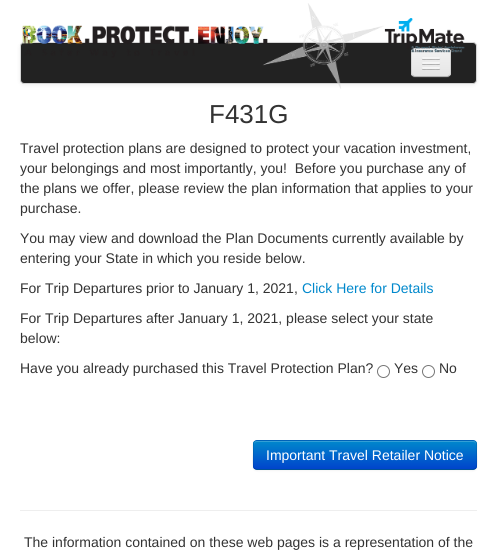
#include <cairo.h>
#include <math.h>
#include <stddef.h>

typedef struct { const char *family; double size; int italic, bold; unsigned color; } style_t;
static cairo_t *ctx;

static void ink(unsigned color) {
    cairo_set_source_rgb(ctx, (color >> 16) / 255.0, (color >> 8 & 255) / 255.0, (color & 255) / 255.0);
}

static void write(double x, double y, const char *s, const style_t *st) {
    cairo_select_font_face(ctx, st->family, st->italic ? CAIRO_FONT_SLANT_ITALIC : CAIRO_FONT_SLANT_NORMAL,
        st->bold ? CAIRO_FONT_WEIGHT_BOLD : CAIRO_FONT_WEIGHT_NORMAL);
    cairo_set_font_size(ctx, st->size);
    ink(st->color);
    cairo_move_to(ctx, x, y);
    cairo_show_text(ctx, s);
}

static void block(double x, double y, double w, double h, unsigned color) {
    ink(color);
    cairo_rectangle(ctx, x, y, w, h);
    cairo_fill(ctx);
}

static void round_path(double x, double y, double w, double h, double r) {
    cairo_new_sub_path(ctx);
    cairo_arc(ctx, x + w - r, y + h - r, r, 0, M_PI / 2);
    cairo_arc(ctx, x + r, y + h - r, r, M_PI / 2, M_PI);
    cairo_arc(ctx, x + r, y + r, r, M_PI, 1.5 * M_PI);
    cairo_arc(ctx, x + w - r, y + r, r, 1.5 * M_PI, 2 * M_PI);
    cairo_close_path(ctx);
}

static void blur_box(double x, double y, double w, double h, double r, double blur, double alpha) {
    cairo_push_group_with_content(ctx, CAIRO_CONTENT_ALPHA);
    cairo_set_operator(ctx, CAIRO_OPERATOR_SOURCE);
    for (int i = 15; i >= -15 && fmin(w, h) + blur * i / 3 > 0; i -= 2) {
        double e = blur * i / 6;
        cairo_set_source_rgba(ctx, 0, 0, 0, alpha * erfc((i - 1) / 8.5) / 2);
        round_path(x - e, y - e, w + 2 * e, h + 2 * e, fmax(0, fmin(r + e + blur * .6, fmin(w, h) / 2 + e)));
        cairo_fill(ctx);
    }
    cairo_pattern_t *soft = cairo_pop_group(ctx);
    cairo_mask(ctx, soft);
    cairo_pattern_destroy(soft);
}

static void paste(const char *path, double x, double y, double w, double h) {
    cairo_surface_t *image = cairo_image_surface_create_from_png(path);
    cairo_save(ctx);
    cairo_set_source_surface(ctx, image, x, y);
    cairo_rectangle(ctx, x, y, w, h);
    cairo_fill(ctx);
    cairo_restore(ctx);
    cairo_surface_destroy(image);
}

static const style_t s1 = {"Liberation Sans", 26, 0, 0, 0x333333};
static const style_t s2 = {"Liberation Sans", 14, 0, 0, 0x333333};
static const style_t s3 = {"Liberation Sans", 14, 0, 0, 0x0088cc};
static const style_t s4 = {"Liberation Sans", 14, 0, 0, 0xffffff};

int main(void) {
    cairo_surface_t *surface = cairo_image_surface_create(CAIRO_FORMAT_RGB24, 497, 552);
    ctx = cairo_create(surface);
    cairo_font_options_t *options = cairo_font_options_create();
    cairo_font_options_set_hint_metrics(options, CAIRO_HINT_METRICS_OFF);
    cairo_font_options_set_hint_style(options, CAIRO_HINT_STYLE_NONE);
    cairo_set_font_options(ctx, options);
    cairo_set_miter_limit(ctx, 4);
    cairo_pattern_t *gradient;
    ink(0xffffff);
    cairo_paint(ctx);
    ink(0x000000);
    blur_box(20, 43, 457, 42, 4, 2, 0.07);
    ink(0x222222);
    round_path(20.5, 42.5, 456, 41, 3.5);
    cairo_fill_preserve(ctx);
    ink(0xd4d4d4);
    cairo_set_line_width(ctx, 1);
    cairo_stroke(ctx);
    ink(0x333333);
    cairo_new_path(ctx);
    cairo_move_to(ctx, 411, 73);
    cairo_curve_to(ctx, 411, 79, 416, 78, 420, 78);
    cairo_line_to(ctx, 442, 78);
    cairo_curve_to(ctx, 446, 78, 451, 79, 451, 73);
    cairo_curve_to(ctx, 451, 75, 449, 77, 447, 77);
    cairo_line_to(ctx, 415, 77);
    cairo_curve_to(ctx, 413, 77, 411, 75, 411, 73);
    cairo_close_path(ctx);
    cairo_fill(ctx);
    ink(0xededed);
    round_path(411, 48, 40, 29, 4);
    cairo_fill(ctx);
    cairo_save(ctx);
    round_path(411, 48, 40, 29, 4);
    cairo_clip(ctx);
    gradient = cairo_pattern_create_linear(431, 49, 431, 76);
    cairo_pattern_add_color_stop_rgba(gradient, 0, 0.949, 0.949, 0.949, 1);
    cairo_pattern_add_color_stop_rgba(gradient, 1, 0.898, 0.898, 0.898, 1);
    cairo_set_source(ctx, gradient);
    cairo_pattern_destroy(gradient);
    cairo_rectangle(ctx, 411, 49, 40, 27);
    cairo_fill(ctx);
    cairo_restore(ctx);
    cairo_new_path(ctx);
    cairo_move_to(ctx, 449.5, 75.5);
    cairo_curve_to(ctx, 449, 76, 448, 76.5, 447, 76.5);
    cairo_line_to(ctx, 415, 76.5);
    cairo_curve_to(ctx, 414, 76.5, 413, 76, 412.5, 75.5);
    cairo_set_source_rgba(ctx, 0, 0, 0, 0.25);
    cairo_stroke(ctx);
    cairo_new_path(ctx);
    cairo_move_to(ctx, 412.5, 75.5);
    cairo_curve_to(ctx, 412, 75, 411.5, 74, 411.5, 73);
    cairo_line_to(ctx, 411.5, 52);
    cairo_curve_to(ctx, 411.5, 51, 412, 50, 412.5, 49.5);
    cairo_curve_to(ctx, 413, 49, 414, 48.5, 415, 48.5);
    cairo_line_to(ctx, 447, 48.5);
    cairo_curve_to(ctx, 448, 48.5, 449, 49, 449.5, 49.5);
    cairo_curve_to(ctx, 450, 50, 450.5, 51, 450.5, 52);
    cairo_line_to(ctx, 450.5, 73);
    cairo_curve_to(ctx, 450.5, 74, 450, 75, 449.5, 75.5);
    cairo_set_source_rgba(ctx, 0, 0, 0, 0.1);
    cairo_stroke(ctx);
    ink(0xb2b2b2);
    cairo_new_path(ctx);
    cairo_move_to(ctx, 422, 58.5);
    cairo_curve_to(ctx, 421, 60.5, 425.5, 60, 425.5, 60);
    cairo_line_to(ctx, 436.5, 60);
    cairo_curve_to(ctx, 436.5, 60, 441, 60.5, 440, 58.5);
    cairo_curve_to(ctx, 439, 59.5, 432.5, 59, 431, 59);
    cairo_curve_to(ctx, 429.5, 59, 423, 59.5, 422, 58.5);
    cairo_close_path(ctx);
    cairo_fill(ctx);
    ink(0xf5f5f5);
    round_path(422, 57, 18, 2, 1);
    cairo_fill(ctx);
    ink(0xb0b0b0);
    cairo_new_path(ctx);
    cairo_move_to(ctx, 422, 63.5);
    cairo_curve_to(ctx, 421, 65.5, 425.5, 65, 425.5, 65);
    cairo_line_to(ctx, 436.5, 65);
    cairo_curve_to(ctx, 436.5, 65, 441, 65.5, 440, 63.5);
    cairo_curve_to(ctx, 439, 64.5, 432.5, 64, 431, 64);
    cairo_curve_to(ctx, 429.5, 64, 423, 64.5, 422, 63.5);
    cairo_close_path(ctx);
    cairo_fill(ctx);
    ink(0xf5f5f5);
    round_path(422, 62, 18, 2, 1);
    cairo_fill(ctx);
    ink(0xaeaeae);
    cairo_new_path(ctx);
    cairo_move_to(ctx, 422, 68.5);
    cairo_curve_to(ctx, 421, 70.5, 425.5, 70, 425.5, 70);
    cairo_line_to(ctx, 436.5, 70);
    cairo_curve_to(ctx, 436.5, 70, 441, 70.5, 440, 68.5);
    cairo_curve_to(ctx, 439, 69.5, 432.5, 69, 431, 69);
    cairo_curve_to(ctx, 429.5, 69, 423, 69.5, 422, 68.5);
    cairo_close_path(ctx);
    cairo_fill(ctx);
    ink(0xf5f5f5);
    round_path(422, 67, 18, 2, 1);
    cairo_fill(ctx);
    paste("pic1.png", 22, 3, 443, 86);
    write(209, 123, "F431G", &s1);
    write(20, 153, "Travel protection plans are designed to protect your vacation investment,", &s2);
    write(20, 173, "your belongings and most importantly, you!  Before you purchase any of", &s2);
    write(20, 193, "the plans we offer, please review the plan information that applies to your", &s2);
    write(20, 213, "purchase.", &s2);
    write(20, 243, "You may view and download the Plan Documents currently available by", &s2);
    write(20, 263, "entering your State in which you reside below.", &s2);
    write(20, 293, "For Trip Departures prior to January 1, 2021,", &s2);
    write(302, 293, "Click Here for Details", &s3);
    write(20, 323, "For Trip Departures after January 1, 2021, please select your state", &s2);
    write(20, 343, "below:", &s2);
    write(20, 373, "Have you already purchased this Travel Protection Plan?", &s2);
    cairo_new_path(ctx);
    cairo_arc(ctx, 383.5, 371.5, 6, 0, 2 * M_PI);
    ink(0x767676);
    cairo_stroke(ctx);
    write(394, 373, "Yes", &s2);
    cairo_new_path(ctx);
    cairo_arc(ctx, 428.5, 371.5, 6, 0, 2 * M_PI);
    ink(0x767676);
    cairo_stroke(ctx);
    write(439, 373, "No", &s2);
    ink(0x000000);
    blur_box(253, 441, 224, 30, 4, 1, 0.05);
    ink(0x006dcc);
    round_path(253, 440, 224, 30, 4);
    cairo_fill(ctx);
    cairo_save(ctx);
    round_path(253, 440, 224, 30, 4);
    cairo_clip(ctx);
    gradient = cairo_pattern_create_linear(365, 441, 365, 469);
    cairo_pattern_add_color_stop_rgba(gradient, 0, 0, 0.533, 0.8, 1);
    cairo_pattern_add_color_stop_rgba(gradient, 1, 0, 0.267, 0.8, 1);
    cairo_set_source(ctx, gradient);
    cairo_pattern_destroy(gradient);
    cairo_rectangle(ctx, 253, 441, 224, 28);
    cairo_fill(ctx);
    cairo_restore(ctx);
    cairo_set_source_rgba(ctx, 1, 1, 1, 0.2);
    cairo_new_path(ctx);
    cairo_move_to(ctx, 257, 442);
    cairo_line_to(ctx, 473, 442);
    cairo_curve_to(ctx, 475, 442, 476, 443, 476, 445);
    cairo_line_to(ctx, 476, 444);
    cairo_curve_to(ctx, 476, 442, 475, 441, 473, 441);
    cairo_line_to(ctx, 257, 441);
    cairo_curve_to(ctx, 255, 441, 254, 442, 254, 444);
    cairo_line_to(ctx, 254, 445);
    cairo_curve_to(ctx, 254, 443, 255, 442, 257, 442);
    cairo_close_path(ctx);
    cairo_fill(ctx);
    cairo_new_path(ctx);
    cairo_move_to(ctx, 475.5, 468.5);
    cairo_curve_to(ctx, 475, 469, 474, 469.5, 473, 469.5);
    cairo_line_to(ctx, 257, 469.5);
    cairo_curve_to(ctx, 256, 469.5, 255, 469, 254.5, 468.5);
    cairo_set_source_rgba(ctx, 0, 0, 0, 0.25);
    cairo_stroke(ctx);
    cairo_new_path(ctx);
    cairo_move_to(ctx, 254.5, 468.5);
    cairo_curve_to(ctx, 252, 466, 253.5, 454.5, 253.5, 451.5);
    cairo_curve_to(ctx, 253.5, 448.5, 252, 440.5, 257, 440.5);
    cairo_line_to(ctx, 473, 440.5);
    cairo_curve_to(ctx, 478, 440.5, 476.5, 448.5, 476.5, 451.5);
    cairo_curve_to(ctx, 476.5, 454.5, 478, 466, 475.5, 468.5);
    cairo_set_source_rgba(ctx, 0, 0, 0, 0.1);
    cairo_stroke(ctx);
    write(266, 460, "Important Travel Retailer Notice", &s4);
    block(20, 510, 457, 1, 0xeeeeee);
    write(24, 547, "The information contained on these web pages is a representation of the", &s2);
    cairo_surface_write_to_png(surface, "screenshot.png");
    cairo_font_options_destroy(options);
    cairo_destroy(ctx);
    cairo_surface_destroy(surface);
    return 0;
}
